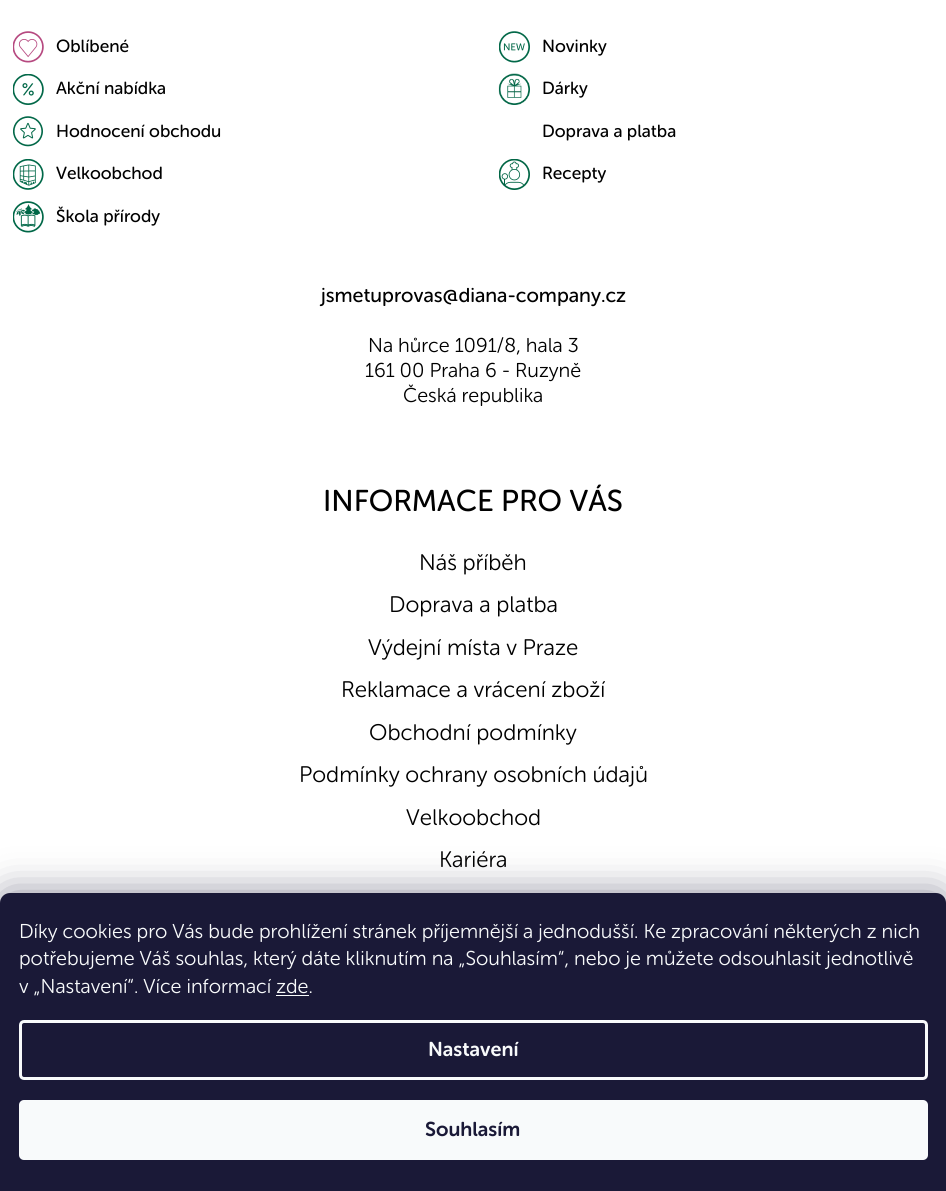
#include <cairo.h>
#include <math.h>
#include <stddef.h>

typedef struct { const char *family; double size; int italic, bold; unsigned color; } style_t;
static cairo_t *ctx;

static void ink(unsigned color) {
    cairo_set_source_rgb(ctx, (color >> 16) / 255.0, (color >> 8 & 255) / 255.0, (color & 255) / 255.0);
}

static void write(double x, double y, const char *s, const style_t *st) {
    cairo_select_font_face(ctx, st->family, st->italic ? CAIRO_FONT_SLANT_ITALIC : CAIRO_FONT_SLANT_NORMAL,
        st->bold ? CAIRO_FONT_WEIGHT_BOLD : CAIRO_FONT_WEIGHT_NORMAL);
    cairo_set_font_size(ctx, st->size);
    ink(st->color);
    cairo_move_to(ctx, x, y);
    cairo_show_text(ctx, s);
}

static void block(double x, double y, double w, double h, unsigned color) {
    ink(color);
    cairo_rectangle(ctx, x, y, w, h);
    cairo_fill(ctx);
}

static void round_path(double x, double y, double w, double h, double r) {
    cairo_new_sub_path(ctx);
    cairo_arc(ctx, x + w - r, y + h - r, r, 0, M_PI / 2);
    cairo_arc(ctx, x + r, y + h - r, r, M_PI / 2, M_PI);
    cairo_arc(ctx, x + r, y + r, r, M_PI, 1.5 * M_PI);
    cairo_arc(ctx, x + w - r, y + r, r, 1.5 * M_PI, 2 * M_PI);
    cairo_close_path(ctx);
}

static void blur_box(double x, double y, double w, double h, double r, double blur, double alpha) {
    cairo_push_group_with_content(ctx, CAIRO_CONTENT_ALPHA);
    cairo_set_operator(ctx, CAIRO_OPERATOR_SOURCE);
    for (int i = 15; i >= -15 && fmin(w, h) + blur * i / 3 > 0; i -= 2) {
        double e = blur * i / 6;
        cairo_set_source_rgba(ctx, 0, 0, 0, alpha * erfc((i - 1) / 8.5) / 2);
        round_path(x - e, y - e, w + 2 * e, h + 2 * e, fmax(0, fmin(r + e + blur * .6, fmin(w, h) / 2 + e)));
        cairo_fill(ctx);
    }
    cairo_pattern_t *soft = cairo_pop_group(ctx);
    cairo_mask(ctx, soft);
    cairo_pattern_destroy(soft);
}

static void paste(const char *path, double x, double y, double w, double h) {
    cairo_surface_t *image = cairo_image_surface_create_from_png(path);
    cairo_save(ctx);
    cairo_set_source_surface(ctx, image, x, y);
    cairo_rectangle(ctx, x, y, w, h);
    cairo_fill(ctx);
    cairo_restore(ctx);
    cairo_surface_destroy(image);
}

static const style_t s1 = {"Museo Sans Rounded", 17.5, 0, 0, 0x000000};
static const style_t s2 = {"Museo Sans Rounded", 20, 0, 0, 0x000000};
static const style_t s3 = {"Museo Sans Rounded Light", 20, 0, 0, 0x000000};
static const style_t s4 = {"Museo Sans Rounded", 30, 0, 0, 0x000000};
static const style_t s5 = {"Museo Sans Rounded Light", 22.5, 0, 0, 0x000000};
static const style_t s6 = {"Museo Sans Rounded Light", 20, 0, 0, 0xf8fafb};
static const style_t s7 = {"Museo Sans Rounded SemiBold", 20, 0, 0, 0xf8fafb};
static const style_t s8 = {"Museo Sans Rounded SemiBold", 20, 0, 0, 0x1a1937};

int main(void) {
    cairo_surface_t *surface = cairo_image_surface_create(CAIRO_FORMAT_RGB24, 946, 1191);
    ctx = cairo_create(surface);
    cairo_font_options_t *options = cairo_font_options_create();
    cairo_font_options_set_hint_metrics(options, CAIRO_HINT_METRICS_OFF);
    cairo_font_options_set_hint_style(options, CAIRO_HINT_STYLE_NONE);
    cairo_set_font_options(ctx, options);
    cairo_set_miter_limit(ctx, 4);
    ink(0xffffff);
    cairo_paint(ctx);
    paste("pic1.png", 13, 31, 31, 32);
    write(56, 52, "Oblíbené", &s1);
    paste("pic2.png", 499, 31, 31, 32);
    write(542, 52, "Novinky", &s1);
    paste("pic3.png", 13, 74, 31, 31);
    write(56, 94, "Akční nabídka", &s1);
    paste("pic4.png", 498, 73, 32, 32);
    write(542, 94, "Dárky", &s1);
    paste("pic5.png", 13, 116, 30, 31);
    write(56, 137, "Hodnocení obchodu", &s1);
    write(542, 137, "Doprava a platba", &s1);
    paste("pic6.png", 13, 159, 31, 31);
    write(56, 179, "Velkoobchod", &s1);
    paste("pic7.png", 499, 159, 31, 31);
    write(542, 179, "Recepty", &s1);
    paste("pic8.png", 13, 201, 31, 32);
    write(56, 222, "Škola přírody", &s1);
    write(321, 302, "jsmetuprovas@diana-company.cz", &s2);
    write(368, 352, "Na hůrce 1091/8, hala 3", &s3);
    write(365, 377, "161 00 Praha 6 - Ruzyně", &s3);
    write(403, 402, "Česká republika", &s3);
    write(323, 511, "INFORMACE PRO VÁS", &s4);
    write(419, 570, "Náš příběh", &s5);
    write(389, 612, "Doprava a platba", &s5);
    write(368, 655, "Výdejní místa v Praze", &s5);
    write(341, 697, "Reklamace a vrácení zboží", &s5);
    write(369, 740, "Obchodní podmínky", &s5);
    write(299, 782, "Podmínky ochrany osobních údajů", &s5);
    write(406, 825, "Velkoobchod", &s5);
    write(439, 867, "Kariéra", &s5);
    ink(0x1b1939);
    blur_box(0, 893, 946, 298, 10, 19, 0.5);
    ink(0x1a1937);
    cairo_new_path(ctx);
    cairo_move_to(ctx, 10, 893);
    cairo_line_to(ctx, 936, 893);
    cairo_curve_to(ctx, 941.5, 893, 946, 897.5, 946, 903);
    cairo_line_to(ctx, 946, 1191);
    cairo_line_to(ctx, 0, 1191);
    cairo_line_to(ctx, 0, 903);
    cairo_curve_to(ctx, 0, 897.5, 4.5, 893, 10, 893);
    cairo_close_path(ctx);
    cairo_fill(ctx);
    write(19, 938, "Díky cookies pro Vás bude prohlížení stránek příjemnější a jednodušší. Ke zpracování některých z nich", &s6);
    write(19, 965, "potřebujeme Váš souhlas, který dáte kliknutím na „Souhlasím“, nebo je můžete odsouhlasit jednotlivě", &s6);
    write(19, 993, "v „Nastavení“. Více informací zde.", &s6);
    block(276, 995, 33, 1, 0xf8fafb);
    round_path(20.5, 1021.5, 906, 57, 3.5);
    cairo_set_line_width(ctx, 3);
    cairo_stroke(ctx);
    write(428, 1056, "Nastavení", &s7);
    round_path(19, 1100, 909, 60, 5);
    cairo_fill(ctx);
    write(425, 1136, "Souhlasím", &s8);
    cairo_surface_write_to_png(surface, "screenshot.png");
    cairo_font_options_destroy(options);
    cairo_destroy(ctx);
    cairo_surface_destroy(surface);
    return 0;
}
